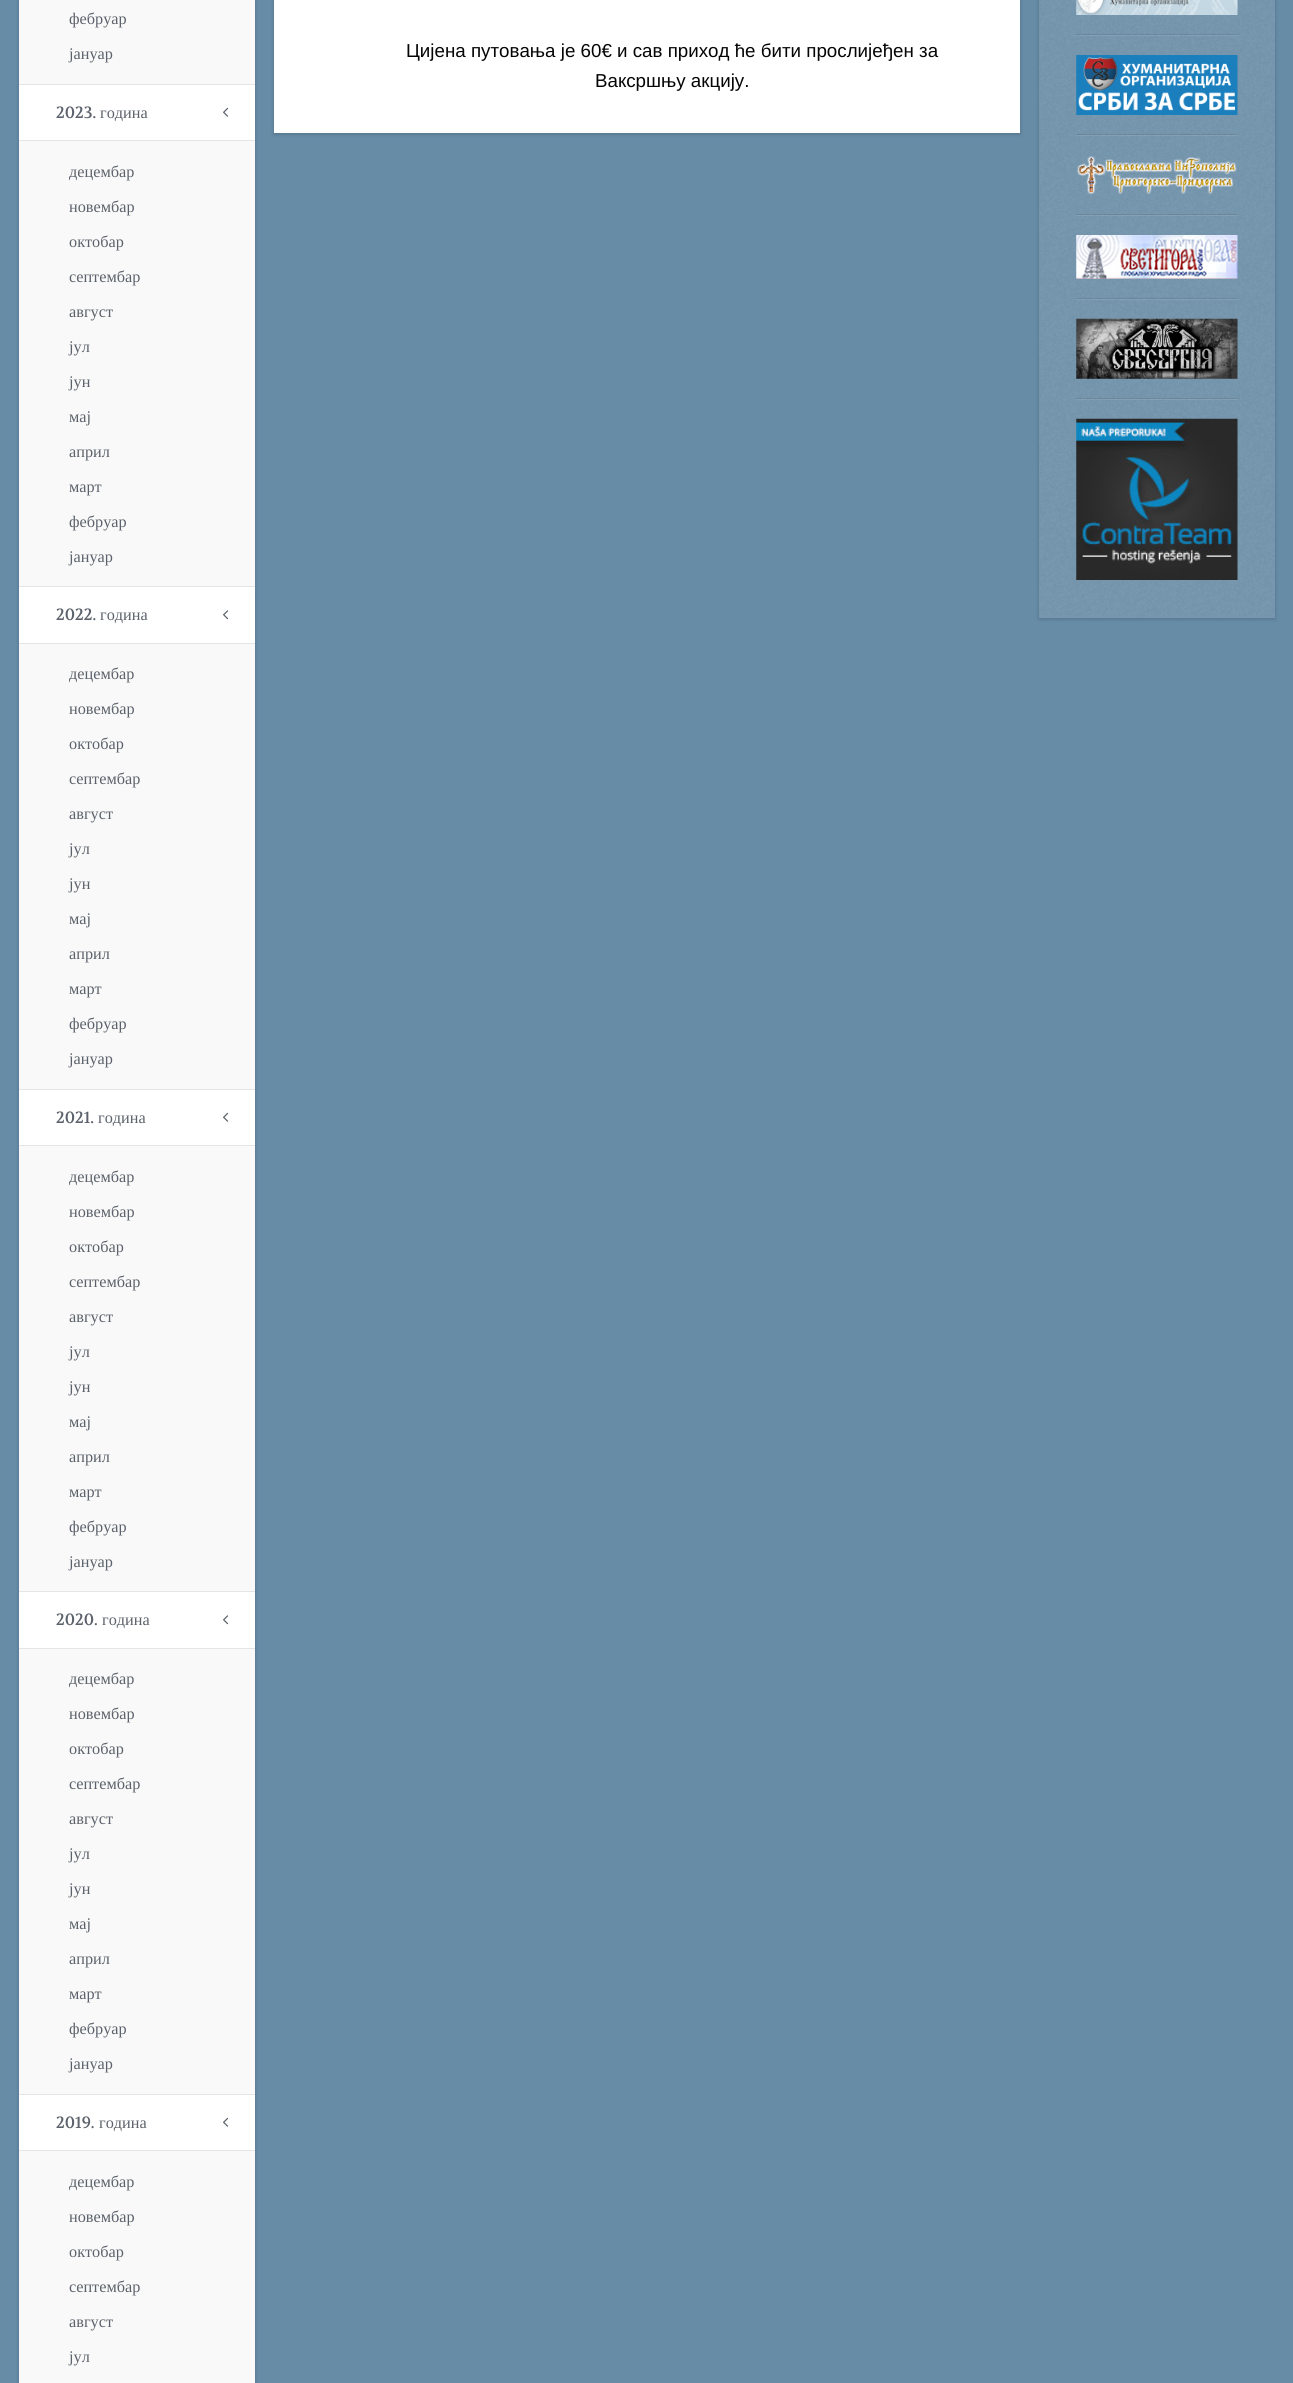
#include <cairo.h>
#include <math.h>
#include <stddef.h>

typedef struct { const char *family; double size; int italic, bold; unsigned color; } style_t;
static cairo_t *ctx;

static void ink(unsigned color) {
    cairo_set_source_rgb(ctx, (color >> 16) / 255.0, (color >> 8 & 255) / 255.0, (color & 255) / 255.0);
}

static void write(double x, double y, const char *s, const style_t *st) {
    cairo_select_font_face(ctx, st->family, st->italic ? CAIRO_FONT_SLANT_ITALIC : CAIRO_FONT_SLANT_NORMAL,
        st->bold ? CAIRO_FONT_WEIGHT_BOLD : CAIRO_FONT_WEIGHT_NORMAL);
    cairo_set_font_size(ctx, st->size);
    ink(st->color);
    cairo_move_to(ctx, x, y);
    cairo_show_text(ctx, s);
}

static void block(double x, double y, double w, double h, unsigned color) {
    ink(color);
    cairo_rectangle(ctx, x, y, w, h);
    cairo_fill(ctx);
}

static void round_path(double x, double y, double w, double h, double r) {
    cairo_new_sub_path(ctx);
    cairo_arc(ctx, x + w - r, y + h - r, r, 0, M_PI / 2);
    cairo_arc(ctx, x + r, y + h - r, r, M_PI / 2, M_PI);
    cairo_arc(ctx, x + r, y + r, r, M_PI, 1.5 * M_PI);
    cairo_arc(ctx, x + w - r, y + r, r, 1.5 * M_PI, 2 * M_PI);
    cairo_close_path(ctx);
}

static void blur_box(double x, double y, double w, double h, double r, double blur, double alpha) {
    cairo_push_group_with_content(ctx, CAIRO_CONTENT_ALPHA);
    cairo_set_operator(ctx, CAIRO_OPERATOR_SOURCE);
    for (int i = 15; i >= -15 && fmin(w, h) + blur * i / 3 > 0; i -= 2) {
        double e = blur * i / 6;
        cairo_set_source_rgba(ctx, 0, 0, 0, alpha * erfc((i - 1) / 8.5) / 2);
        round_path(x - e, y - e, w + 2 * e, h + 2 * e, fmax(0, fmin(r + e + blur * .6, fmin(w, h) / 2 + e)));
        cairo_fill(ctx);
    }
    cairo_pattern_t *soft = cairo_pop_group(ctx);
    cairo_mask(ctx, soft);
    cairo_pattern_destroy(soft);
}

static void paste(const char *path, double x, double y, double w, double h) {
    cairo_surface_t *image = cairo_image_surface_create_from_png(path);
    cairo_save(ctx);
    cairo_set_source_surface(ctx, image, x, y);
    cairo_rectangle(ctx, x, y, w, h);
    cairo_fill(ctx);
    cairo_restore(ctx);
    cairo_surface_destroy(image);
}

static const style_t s1 = {"Liberation Serif", 16.25, 0, 0, 0x5c626b};
static const style_t s2 = {"Volkhov", 16.25, 0, 0, 0x5c626b};
static const style_t s3 = {"Liberation Sans", 18.75, 0, 0, 0x050505};

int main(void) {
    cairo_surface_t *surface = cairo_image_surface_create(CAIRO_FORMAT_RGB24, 1293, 2383);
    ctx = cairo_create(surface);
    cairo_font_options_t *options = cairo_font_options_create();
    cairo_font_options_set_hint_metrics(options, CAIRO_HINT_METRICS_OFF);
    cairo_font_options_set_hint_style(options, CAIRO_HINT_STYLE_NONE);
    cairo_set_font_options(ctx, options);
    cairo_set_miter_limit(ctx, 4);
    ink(0x678ca6);
    cairo_paint(ctx);
    ink(0x1e3246);
    blur_box(19, -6, 236, 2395, 0, 2, 0.3);
    block(19, 85, 236, 2065, 0xffffff);
    block(19, 0, 236, 84, 0xf9f9f9);
    write(69, 24, "фебруар", &s1);
    write(69, 59, "јануар", &s1);
    block(19, 84, 236, 1, 0xe5e5e5);
    write(56, 118, "2023.", &s2);
    write(100, 118, "година", &s1);
    paste("pic1.png", 223, 107, 6, 10);
    block(19, 141, 236, 445, 0xf9f9f9);
    block(19, 140, 236, 1, 0xe5e5e5);
    write(69, 177, "децембар", &s1);
    write(69, 212, "новембар", &s1);
    write(69, 247, "октобар", &s1);
    write(69, 282, "септембар", &s1);
    write(69, 317, "август", &s1);
    write(69, 352, "јул", &s1);
    write(69, 387, "јун", &s1);
    write(69, 422, "мај", &s1);
    write(69, 457, "април", &s1);
    write(69, 492, "март", &s1);
    write(69, 527, "фебруар", &s1);
    write(69, 562, "јануар", &s1);
    block(19, 586, 236, 1, 0xe5e5e5);
    write(56, 620, "2022.", &s2);
    write(100, 620, "година", &s1);
    paste("pic2.png", 223, 610, 6, 10);
    block(19, 644, 236, 445, 0xf9f9f9);
    block(19, 643, 236, 1, 0xe5e5e5);
    write(69, 679, "децембар", &s1);
    write(69, 714, "новембар", &s1);
    write(69, 749, "октобар", &s1);
    write(69, 784, "септембар", &s1);
    write(69, 819, "август", &s1);
    write(69, 854, "јул", &s1);
    write(69, 889, "јун", &s1);
    write(69, 924, "мај", &s1);
    write(69, 959, "април", &s1);
    write(69, 994, "март", &s1);
    write(69, 1029, "фебруар", &s1);
    write(69, 1064, "јануар", &s1);
    block(19, 1089, 236, 1, 0xe5e5e5);
    write(56, 1123, "2021.", &s2);
    write(98, 1123, "година", &s1);
    paste("pic1.png", 223, 1112, 6, 10);
    block(19, 1146, 236, 445, 0xf9f9f9);
    block(19, 1145, 236, 1, 0xe5e5e5);
    write(69, 1182, "децембар", &s1);
    write(69, 1217, "новембар", &s1);
    write(69, 1252, "октобар", &s1);
    write(69, 1287, "септембар", &s1);
    write(69, 1322, "август", &s1);
    write(69, 1357, "јул", &s1);
    write(69, 1392, "јун", &s1);
    write(69, 1427, "мај", &s1);
    write(69, 1462, "април", &s1);
    write(69, 1497, "март", &s1);
    write(69, 1532, "фебруар", &s1);
    write(69, 1567, "јануар", &s1);
    block(19, 1591, 236, 1, 0xe5e5e5);
    write(56, 1625, "2020.", &s2);
    write(102, 1625, "година", &s1);
    paste("pic2.png", 223, 1615, 6, 10);
    block(19, 1649, 236, 445, 0xf9f9f9);
    block(19, 1648, 236, 1, 0xe5e5e5);
    write(69, 1684, "децембар", &s1);
    write(69, 1719, "новембар", &s1);
    write(69, 1754, "октобар", &s1);
    write(69, 1789, "септембар", &s1);
    write(69, 1824, "август", &s1);
    write(69, 1859, "јул", &s1);
    write(69, 1894, "јун", &s1);
    write(69, 1929, "мај", &s1);
    write(69, 1964, "април", &s1);
    write(69, 1999, "март", &s1);
    write(69, 2034, "фебруар", &s1);
    write(69, 2069, "јануар", &s1);
    block(19, 2094, 236, 1, 0xe5e5e5);
    write(56, 2128, "2019.", &s2);
    write(99, 2128, "година", &s1);
    paste("pic1.png", 223, 2117, 6, 10);
    block(19, 2151, 236, 232, 0xf9f9f9);
    block(19, 2150, 236, 1, 0xe5e5e5);
    write(69, 2187, "децембар", &s1);
    write(69, 2222, "новембар", &s1);
    write(69, 2257, "октобар", &s1);
    write(69, 2292, "септембар", &s1);
    write(69, 2327, "август", &s1);
    write(69, 2362, "јул", &s1);
    ink(0x1e3246);
    blur_box(274, -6, 746, 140, 0, 2, 0.3);
    block(274, 0, 746, 133, 0xffffff);
    write(406, 57, "Цијена путовања је 60€ и сав приход ће бити прослијеђен за", &s3);
    write(595, 87, "Ваксршњу акцију.", &s3);
    cairo_save(ctx);
    cairo_set_fill_rule(ctx, CAIRO_FILL_RULE_EVEN_ODD);
    cairo_new_path(ctx);
    cairo_move_to(ctx, 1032, 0);
    cairo_line_to(ctx, 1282, 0);
    cairo_line_to(ctx, 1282, 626);
    cairo_line_to(ctx, 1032, 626);
    cairo_close_path(ctx);
    cairo_move_to(ctx, 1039, -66);
    cairo_line_to(ctx, 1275, -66);
    cairo_line_to(ctx, 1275, 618);
    cairo_line_to(ctx, 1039, 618);
    cairo_close_path(ctx);
    cairo_clip(ctx);
    ink(0x1e3246);
    blur_box(1039, -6, 236, 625, 0, 2, 0.3);
    cairo_restore(ctx);
    cairo_set_source_rgba(ctx, 1, 1, 1, 0.1);
    cairo_rectangle(ctx, 1039, 0, 236, 618);
    cairo_fill(ctx);
    paste("pic3.png", 1039, 0, 236, 617);
    paste("pic4.png", 1076, 0, 162, 15);
    cairo_rectangle(ctx, 1076, 35, 162, 1);
    cairo_fill(ctx);
    cairo_set_source_rgba(ctx, 0, 0, 0, 0.1);
    cairo_rectangle(ctx, 1076, 34, 162, 1);
    cairo_fill(ctx);
    paste("pic5.png", 1076, 55, 162, 60);
    cairo_set_source_rgba(ctx, 1, 1, 1, 0.1);
    cairo_rectangle(ctx, 1076, 135, 162, 1);
    cairo_fill(ctx);
    cairo_set_source_rgba(ctx, 0, 0, 0, 0.1);
    cairo_rectangle(ctx, 1076, 134, 162, 1);
    cairo_fill(ctx);
    paste("pic6.png", 1077, 156, 160, 39);
    cairo_set_source_rgba(ctx, 1, 1, 1, 0.1);
    cairo_rectangle(ctx, 1076, 215, 162, 1);
    cairo_fill(ctx);
    cairo_set_source_rgba(ctx, 0, 0, 0, 0.1);
    cairo_rectangle(ctx, 1076, 214, 162, 1);
    cairo_fill(ctx);
    paste("pic7.png", 1076, 235, 162, 44);
    cairo_set_source_rgba(ctx, 1, 1, 1, 0.1);
    cairo_rectangle(ctx, 1076, 299, 162, 1);
    cairo_fill(ctx);
    cairo_set_source_rgba(ctx, 0, 0, 0, 0.1);
    cairo_rectangle(ctx, 1076, 298, 162, 1);
    cairo_fill(ctx);
    paste("pic8.png", 1076, 318, 162, 61);
    cairo_set_source_rgba(ctx, 1, 1, 1, 0.1);
    cairo_rectangle(ctx, 1076, 399, 162, 1);
    cairo_fill(ctx);
    cairo_set_source_rgba(ctx, 0, 0, 0, 0.1);
    cairo_rectangle(ctx, 1076, 398, 162, 1);
    cairo_fill(ctx);
    paste("pic9.png", 1076, 418, 162, 162);
    cairo_surface_write_to_png(surface, "screenshot.png");
    cairo_font_options_destroy(options);
    cairo_destroy(ctx);
    cairo_surface_destroy(surface);
    return 0;
}
